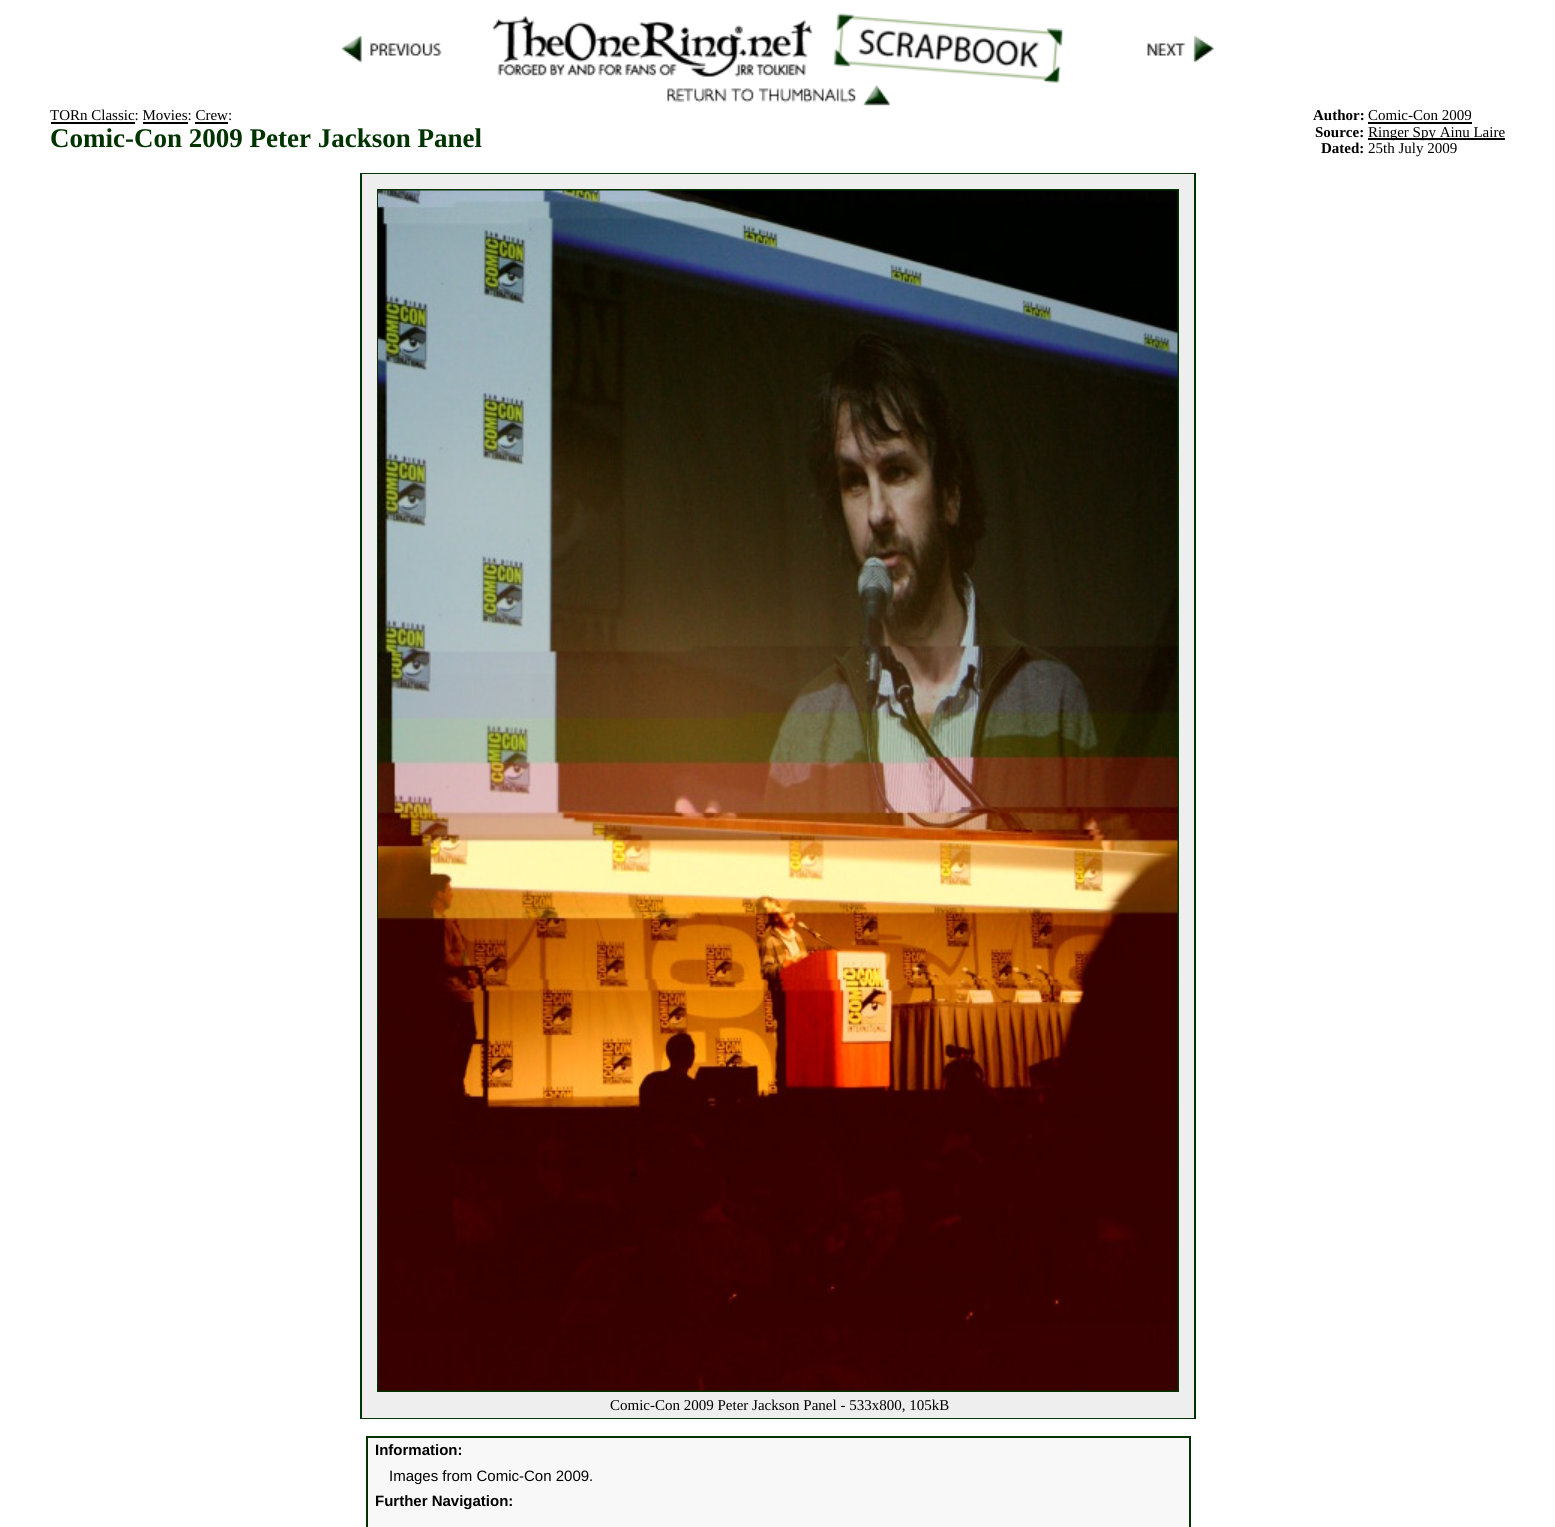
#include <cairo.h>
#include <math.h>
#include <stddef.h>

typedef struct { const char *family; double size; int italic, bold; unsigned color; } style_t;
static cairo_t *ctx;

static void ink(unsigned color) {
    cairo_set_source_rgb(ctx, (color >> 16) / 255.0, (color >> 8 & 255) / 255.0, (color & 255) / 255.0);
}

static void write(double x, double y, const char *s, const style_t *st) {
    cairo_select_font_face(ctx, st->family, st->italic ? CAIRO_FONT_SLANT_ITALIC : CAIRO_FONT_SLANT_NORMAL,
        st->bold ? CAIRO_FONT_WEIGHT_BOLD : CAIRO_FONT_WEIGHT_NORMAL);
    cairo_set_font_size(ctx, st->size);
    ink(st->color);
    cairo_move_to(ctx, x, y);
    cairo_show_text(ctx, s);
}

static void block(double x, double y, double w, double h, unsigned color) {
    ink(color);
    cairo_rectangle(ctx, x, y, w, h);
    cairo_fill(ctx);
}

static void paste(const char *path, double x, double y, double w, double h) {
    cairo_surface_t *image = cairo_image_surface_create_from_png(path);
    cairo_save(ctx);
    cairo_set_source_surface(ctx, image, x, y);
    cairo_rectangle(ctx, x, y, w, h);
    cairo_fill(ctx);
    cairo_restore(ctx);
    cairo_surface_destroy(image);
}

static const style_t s1 = {"Liberation Serif", 15, 0, 0, 0x000000};
static const style_t s2 = {"Liberation Serif", 27, 0, 1, 0x003300};
static const style_t s3 = {"Liberation Serif", 15, 0, 1, 0x000000};
static const style_t s4 = {"Liberation Sans", 15, 0, 1, 0x000000};
static const style_t s5 = {"Liberation Sans", 15, 0, 0, 0x000000};

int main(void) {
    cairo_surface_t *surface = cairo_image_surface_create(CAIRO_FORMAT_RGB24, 1555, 1527);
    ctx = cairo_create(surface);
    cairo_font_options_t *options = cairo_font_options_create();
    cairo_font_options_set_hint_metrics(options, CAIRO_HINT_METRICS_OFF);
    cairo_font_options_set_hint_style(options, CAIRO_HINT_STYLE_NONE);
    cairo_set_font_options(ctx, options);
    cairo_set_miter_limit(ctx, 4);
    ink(0xffffff);
    cairo_paint(ctx);
    paste("pic1.png", 341, 35, 101, 28);
    paste("pic2.png", 492, 13, 572, 70);
    paste("pic3.png", 1147, 35, 67, 28);
    paste("pic4.png", 667, 85, 224, 21);
    write(50, 120, "TORn Classic: Movies: Crew:", &s1);
    block(51, 122, 84, 2, 0x000000);
    block(143, 122, 45, 2, 0x000000);
    block(195, 122, 33, 2, 0x000000);
    write(50, 147, "Comic-Con 2009 Peter Jackson Panel", &s2);
    write(1313, 120, "Author:", &s3);
    write(1368, 120, "Comic-Con 2009", &s1);
    block(1368, 122, 104, 2, 0x000000);
    write(1315, 137, "Source:", &s3);
    block(1368, 138, 137, 2, 0x000000);
    write(1368, 137, "Ringer Spy Ainu Laire", &s1);
    write(1321, 153, "Dated:", &s3);
    write(1368, 153, "25th July 2009", &s1);
    cairo_rectangle(ctx, 361, 174, 834, 1244);
    ink(0x003300);
    cairo_stroke(ctx);
    block(362, 174, 832, 1244, 0xeeeeee);
    cairo_rectangle(ctx, 378, 190, 800, 1201);
    ink(0x003300);
    cairo_stroke(ctx);
    paste("pic5.png", 378, 190, 800, 1201);
    write(610, 1410, "Comic-Con 2009 Peter Jackson Panel - 533x800, 105kB", &s1);
    ink(0xf8f8f8);
    cairo_rectangle(ctx, 367, 1437, 823, 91);
    cairo_fill_preserve(ctx);
    ink(0x003300);
    cairo_stroke(ctx);
    write(375, 1455, "Information:", &s4);
    write(389, 1481, "Images from Comic-Con 2009.", &s5);
    write(375, 1506, "Further Navigation:", &s4);
    cairo_surface_write_to_png(surface, "screenshot.png");
    cairo_font_options_destroy(options);
    cairo_destroy(ctx);
    cairo_surface_destroy(surface);
    return 0;
}
